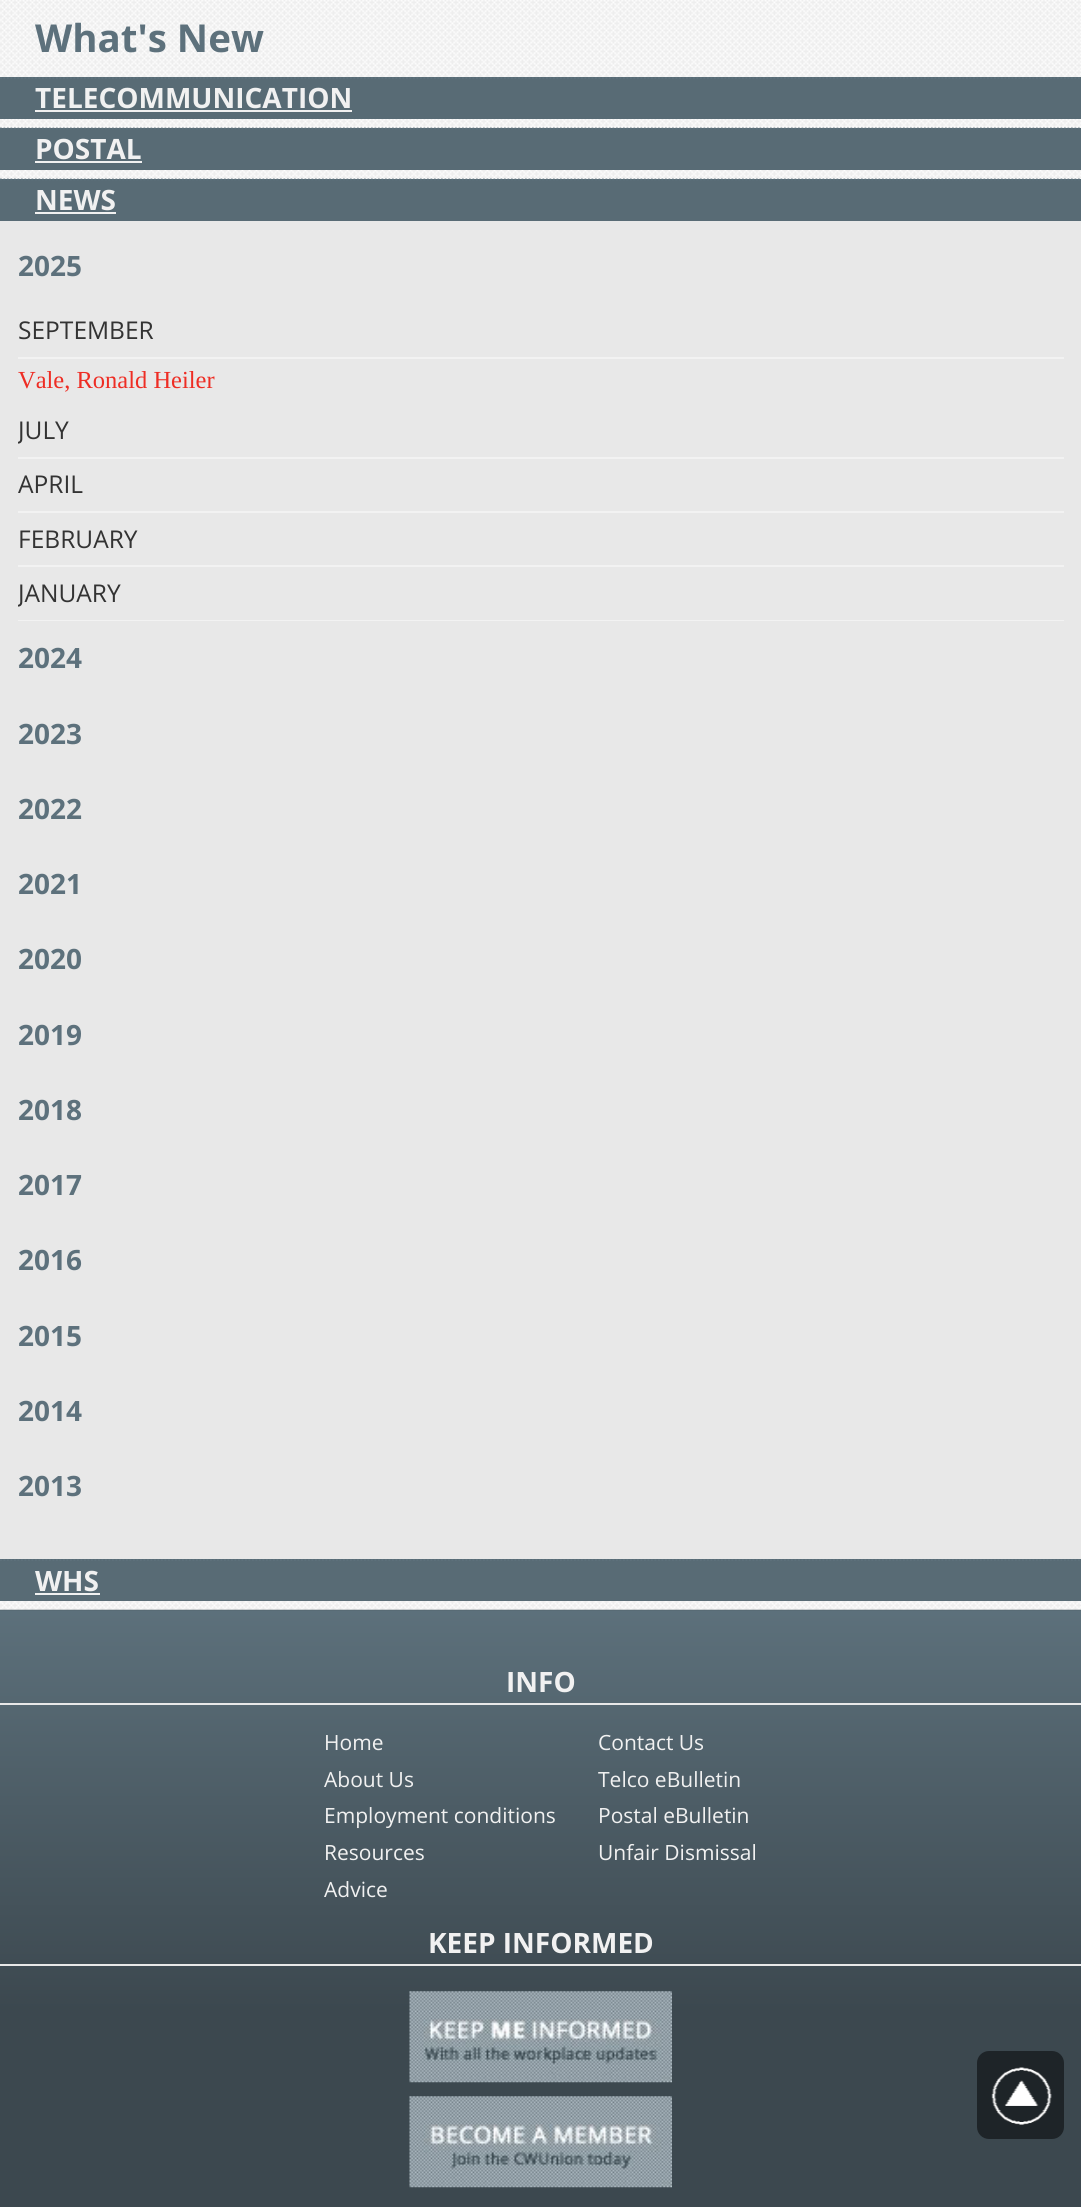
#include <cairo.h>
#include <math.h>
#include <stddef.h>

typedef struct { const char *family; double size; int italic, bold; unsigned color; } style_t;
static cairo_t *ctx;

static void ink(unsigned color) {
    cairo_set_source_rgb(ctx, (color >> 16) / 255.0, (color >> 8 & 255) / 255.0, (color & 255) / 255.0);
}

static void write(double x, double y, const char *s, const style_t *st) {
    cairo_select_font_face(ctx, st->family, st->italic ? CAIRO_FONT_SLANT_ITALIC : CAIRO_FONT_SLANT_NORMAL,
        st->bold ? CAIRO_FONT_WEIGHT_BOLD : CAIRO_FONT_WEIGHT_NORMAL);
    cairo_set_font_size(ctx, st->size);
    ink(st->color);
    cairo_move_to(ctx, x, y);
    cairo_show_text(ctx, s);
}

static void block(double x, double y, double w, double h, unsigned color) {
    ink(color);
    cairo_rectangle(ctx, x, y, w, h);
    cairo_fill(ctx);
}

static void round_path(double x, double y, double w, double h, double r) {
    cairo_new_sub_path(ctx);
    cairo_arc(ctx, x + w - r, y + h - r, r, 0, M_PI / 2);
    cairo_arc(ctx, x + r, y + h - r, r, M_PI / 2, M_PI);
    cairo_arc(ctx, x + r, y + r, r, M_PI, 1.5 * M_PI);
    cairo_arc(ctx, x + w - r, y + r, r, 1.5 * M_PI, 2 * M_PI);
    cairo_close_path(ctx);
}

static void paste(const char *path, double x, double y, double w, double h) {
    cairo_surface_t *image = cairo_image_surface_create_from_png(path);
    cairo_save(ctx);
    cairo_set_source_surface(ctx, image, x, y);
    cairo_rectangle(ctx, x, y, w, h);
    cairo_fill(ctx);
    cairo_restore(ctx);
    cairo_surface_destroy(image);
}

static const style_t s1 = {"Open Sans", 38.5, 0, 1, 0x5d717c};
static const style_t s2 = {"Open Sans", 28, 0, 1, 0xf1f1f1};
static const style_t s3 = {"Open Sans", 28, 0, 1, 0x5d717c};
static const style_t s4 = {"Open Sans", 24.5, 0, 0, 0x333333};
static const style_t s5 = {"Liberation Serif", 24.5, 0, 0, 0xee2d24};
static const style_t s6 = {"Open Sans", 21, 0, 0, 0xf1f1f1};

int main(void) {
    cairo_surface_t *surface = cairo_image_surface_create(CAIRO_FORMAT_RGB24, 1081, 2207);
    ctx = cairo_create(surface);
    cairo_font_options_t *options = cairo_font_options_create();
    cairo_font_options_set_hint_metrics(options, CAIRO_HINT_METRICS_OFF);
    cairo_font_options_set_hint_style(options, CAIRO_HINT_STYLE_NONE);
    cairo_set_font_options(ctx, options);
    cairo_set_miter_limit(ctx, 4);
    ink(0xffffff);
    cairo_paint(ctx);
    paste("pic1.png", 0, 0, 1081, 1610);
    write(35, 52, "What's New", &s1);
    block(0, 77, 1081, 42, 0x586b75);
    cairo_new_path(ctx);
    cairo_move_to(ctx, 0, 78);
    cairo_line_to(ctx, 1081.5, 78);
    ink(0x5d717c);
    cairo_set_line_width(ctx, 1.8);
    cairo_set_dash(ctx, (double[]){1.75, 1.75}, 2, 0);
    cairo_stroke(ctx);
    write(35, 108, "TELECOMMUNICATION", &s2);
    block(35, 110, 317, 2, 0xf1f1f1);
    block(0, 128, 1081, 42, 0x586b75);
    cairo_new_path(ctx);
    cairo_move_to(ctx, 0, 128.5);
    cairo_line_to(ctx, 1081.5, 128.5);
    ink(0x5d717c);
    cairo_stroke(ctx);
    write(35, 159, "POSTAL", &s2);
    block(35, 161, 107, 2, 0xf1f1f1);
    block(0, 179, 1081, 42, 0x586b75);
    cairo_new_path(ctx);
    cairo_move_to(ctx, 0, 179.5);
    cairo_line_to(ctx, 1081.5, 179.5);
    ink(0x5d717c);
    cairo_stroke(ctx);
    write(35, 210, "NEWS", &s2);
    block(35, 212, 81, 2, 0xf1f1f1);
    block(0, 221, 1081, 1338, 0xe8e8e8);
    write(18, 276, "2025", &s3);
    block(18, 357, 1046, 2, 0xf2f2f2);
    write(18, 339, "SEPTEMBER", &s4);
    write(18, 388, "Vale, Ronald Heiler", &s5);
    block(18, 457, 1046, 2, 0xf2f2f2);
    cairo_save(ctx);
    cairo_rectangle(ctx, 18, 404, 1046, 55);
    cairo_clip(ctx);
    write(18, 439, "JULY", &s4);
    cairo_restore(ctx);
    block(18, 511, 1046, 2, 0xf2f2f2);
    write(18, 493, "APRIL", &s4);
    block(18, 565, 1046, 2, 0xf2f2f2);
    write(18, 548, "FEBRUARY", &s4);
    block(18, 620, 1046, 1, 0xf2f2f2);
    cairo_save(ctx);
    cairo_rectangle(ctx, 18, 567, 1046, 54);
    cairo_clip(ctx);
    write(18, 602, "JANUARY", &s4);
    cairo_restore(ctx);
    write(18, 668, "2024", &s3);
    write(18, 744, "2023", &s3);
    write(18, 819, "2022", &s3);
    write(18, 894, "2021", &s3);
    write(18, 969, "2020", &s3);
    write(18, 1045, "2019", &s3);
    write(18, 1120, "2018", &s3);
    write(18, 1195, "2017", &s3);
    write(18, 1270, "2016", &s3);
    write(18, 1346, "2015", &s3);
    write(18, 1421, "2014", &s3);
    write(18, 1496, "2013", &s3);
    block(0, 1559, 1081, 42, 0x586b75);
    cairo_new_path(ctx);
    cairo_move_to(ctx, 0, 1560);
    cairo_line_to(ctx, 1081.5, 1560);
    ink(0x5d717c);
    cairo_stroke(ctx);
    write(35, 1591, "WHS", &s2);
    block(35, 1593, 65, 2, 0xf1f1f1);
    paste("pic2.png", 0, 1609, 1081, 598);
    block(0, 1703, 1081, 2, 0xe8e8e8);
    write(506, 1692, "INFO", &s2);
    write(324, 1750, "Home", &s6);
    write(324, 1787, "About Us", &s6);
    write(324, 1823, "Employment conditions", &s6);
    write(324, 1860, "Resources", &s6);
    write(324, 1897, "Advice", &s6);
    write(598, 1750, "Contact Us", &s6);
    write(598, 1787, "Telco eBulletin", &s6);
    write(598, 1823, "Postal eBulletin", &s6);
    write(598, 1860, "Unfair Dismissal", &s6);
    block(0, 1964, 1081, 2, 0xe8e8e8);
    write(428, 1953, "KEEP INFORMED", &s2);
    paste("pic3.png", 409, 1991, 263, 92);
    paste("pic4.png", 409, 2096, 263, 92);
    ink(0x1e2428);
    round_path(977, 2051, 87, 88, 12);
    cairo_fill(ctx);
    paste("pic5.png", 991, 2067, 61, 58);
    cairo_surface_write_to_png(surface, "screenshot.png");
    cairo_font_options_destroy(options);
    cairo_destroy(ctx);
    cairo_surface_destroy(surface);
    return 0;
}
